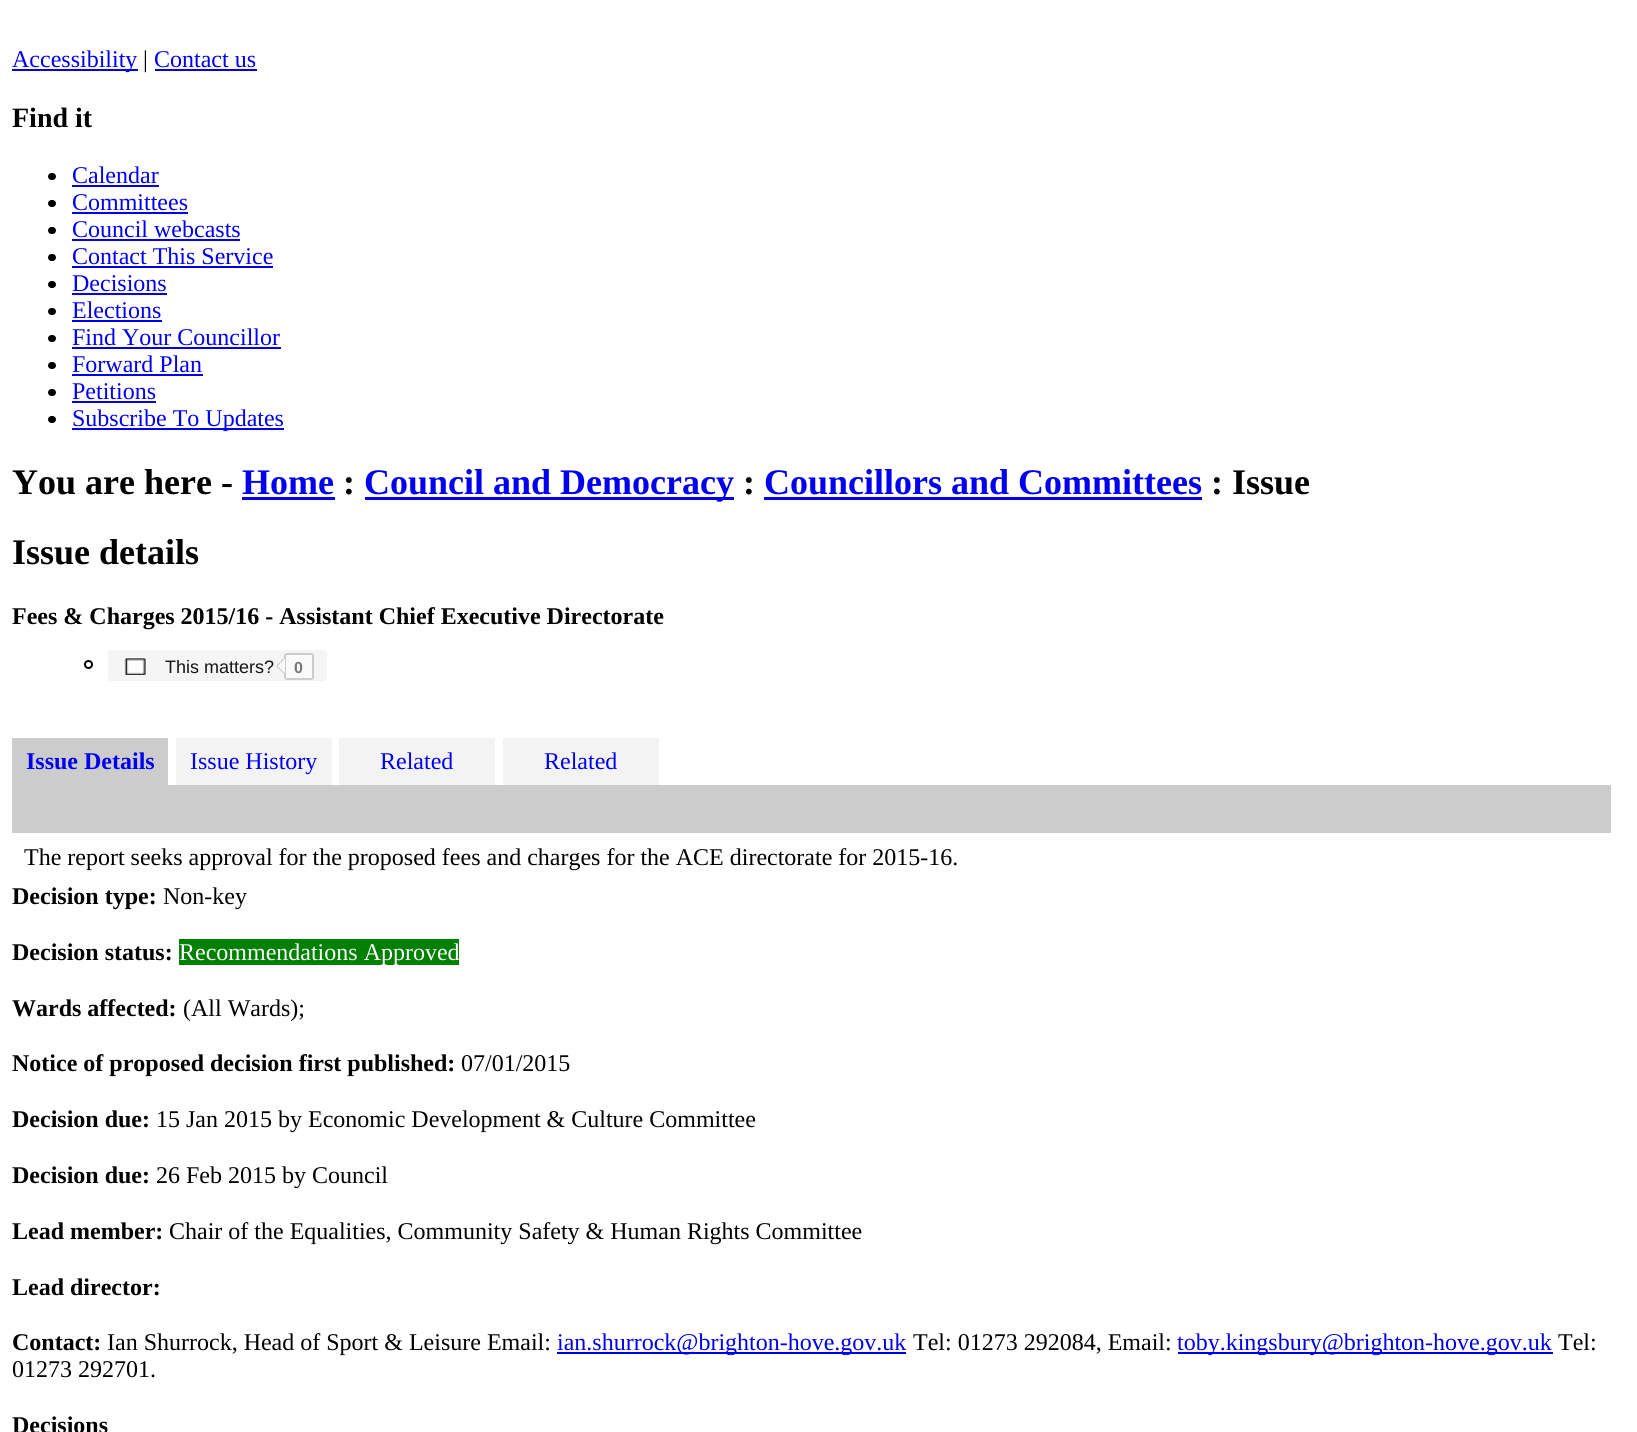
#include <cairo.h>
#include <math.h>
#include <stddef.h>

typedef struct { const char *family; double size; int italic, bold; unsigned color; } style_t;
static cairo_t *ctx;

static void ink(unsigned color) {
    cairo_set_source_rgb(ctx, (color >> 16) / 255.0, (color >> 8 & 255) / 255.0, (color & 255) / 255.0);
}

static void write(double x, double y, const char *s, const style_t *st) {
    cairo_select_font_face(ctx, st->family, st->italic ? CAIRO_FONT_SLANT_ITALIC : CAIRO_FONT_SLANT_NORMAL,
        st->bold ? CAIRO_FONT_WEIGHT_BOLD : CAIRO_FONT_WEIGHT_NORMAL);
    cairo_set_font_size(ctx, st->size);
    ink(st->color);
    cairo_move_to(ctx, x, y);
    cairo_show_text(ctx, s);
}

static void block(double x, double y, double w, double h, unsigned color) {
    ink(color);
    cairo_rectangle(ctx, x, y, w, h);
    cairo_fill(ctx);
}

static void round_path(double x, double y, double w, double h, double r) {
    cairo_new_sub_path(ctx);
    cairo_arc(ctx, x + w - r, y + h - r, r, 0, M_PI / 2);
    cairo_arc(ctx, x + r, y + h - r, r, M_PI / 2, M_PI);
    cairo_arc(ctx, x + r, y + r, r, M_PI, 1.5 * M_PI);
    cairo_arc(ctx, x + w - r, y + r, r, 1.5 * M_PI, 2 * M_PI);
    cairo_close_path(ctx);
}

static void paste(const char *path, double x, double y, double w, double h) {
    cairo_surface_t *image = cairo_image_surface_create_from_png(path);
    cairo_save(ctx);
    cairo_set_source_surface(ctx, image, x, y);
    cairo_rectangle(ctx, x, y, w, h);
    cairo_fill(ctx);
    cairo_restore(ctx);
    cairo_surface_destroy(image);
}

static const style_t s1 = {"Liberation Serif", 24, 0, 0, 0x0000ee};
static const style_t s2 = {"Liberation Serif", 24, 0, 0, 0x000000};
static const style_t s3 = {"Liberation Serif", 28, 0, 1, 0x000000};
static const style_t s4 = {"Liberation Serif", 36, 0, 1, 0x000000};
static const style_t s5 = {"Liberation Serif", 36, 0, 1, 0x0000ee};
static const style_t s6 = {"Liberation Serif", 24, 0, 1, 0x000000};
static const style_t s7 = {"Liberation Sans", 18, 0, 0, 0x141414};
static const style_t s8 = {"Liberation Sans", 16, 0, 1, 0x777777};
static const style_t s9 = {"Liberation Serif", 24, 0, 1, 0x0000ee};
static const style_t s10 = {"Liberation Serif", 24, 0, 0, 0xffffff};

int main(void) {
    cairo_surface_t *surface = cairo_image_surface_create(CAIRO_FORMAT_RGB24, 1637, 1432);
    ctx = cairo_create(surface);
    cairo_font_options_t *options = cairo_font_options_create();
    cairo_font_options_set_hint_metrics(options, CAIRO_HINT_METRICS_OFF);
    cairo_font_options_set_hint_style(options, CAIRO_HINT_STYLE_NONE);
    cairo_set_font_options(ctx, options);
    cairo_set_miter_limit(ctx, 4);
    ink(0xffffff);
    cairo_paint(ctx);
    block(12, 69, 126, 2, 0x0000ee);
    write(12, 67, "Accessibility", &s1);
    write(143, 67, "|", &s2);
    write(154, 67, "Contact us", &s1);
    block(155, 69, 102, 2, 0x0000ee);
    write(12, 127, "Find it", &s3);
    round_path(48, 173, 8, 7, 3.5);
    cairo_fill(ctx);
    write(72, 183, "Calendar", &s1);
    block(72, 185, 87, 2, 0x0000ee);
    ink(0x000000);
    round_path(48, 200, 8, 7, 3.5);
    cairo_fill(ctx);
    write(72, 210, "Committees", &s1);
    block(72, 212, 116, 2, 0x0000ee);
    ink(0x000000);
    round_path(48, 227, 8, 7, 3.5);
    cairo_fill(ctx);
    write(72, 237, "Council webcasts", &s1);
    block(72, 239, 168, 2, 0x0000ee);
    ink(0x000000);
    round_path(48, 254, 8, 7, 3.5);
    cairo_fill(ctx);
    write(72, 264, "Contact This Service", &s1);
    block(72, 266, 201, 2, 0x0000ee);
    ink(0x000000);
    round_path(48, 281, 8, 7, 3.5);
    cairo_fill(ctx);
    write(72, 291, "Decisions", &s1);
    block(72, 293, 95, 2, 0x0000ee);
    ink(0x000000);
    round_path(48, 308, 8, 7, 3.5);
    cairo_fill(ctx);
    write(72, 318, "Elections", &s1);
    block(72, 320, 90, 2, 0x0000ee);
    ink(0x000000);
    round_path(48, 335, 8, 7, 3.5);
    cairo_fill(ctx);
    write(72, 345, "Find Your Councillor", &s1);
    block(72, 347, 209, 2, 0x0000ee);
    ink(0x000000);
    round_path(48, 362, 8, 7, 3.5);
    cairo_fill(ctx);
    write(72, 372, "Forward Plan", &s1);
    block(72, 374, 131, 2, 0x0000ee);
    ink(0x000000);
    round_path(48, 389, 8, 7, 3.5);
    cairo_fill(ctx);
    write(72, 399, "Petitions", &s1);
    block(72, 401, 84, 2, 0x0000ee);
    ink(0x000000);
    round_path(48, 416, 8, 7, 3.5);
    cairo_fill(ctx);
    block(72, 428, 212, 2, 0x0000ee);
    write(72, 426, "Subscribe To Updates", &s1);
    write(12, 494, "You are here -", &s4);
    write(242, 494, "Home", &s5);
    block(242, 497, 93, 3, 0x0000ee);
    write(343, 494, ":", &s4);
    block(365, 497, 369, 3, 0x0000ee);
    write(364, 494, "Council and Democracy", &s5);
    write(743, 494, ":", &s4);
    write(764, 494, "Councillors and Committees", &s5);
    block(764, 497, 438, 3, 0x0000ee);
    write(1211, 494, ": Issue", &s4);
    write(12, 564, "Issue details", &s4);
    write(12, 624, "Fees & Charges 2015/16 - Assistant Chief Executive Directorate", &s6);
    cairo_new_path(ctx);
    cairo_arc(ctx, 88.5, 664.5, 3.5, 0, 2 * M_PI);
    cairo_stroke(ctx);
    ink(0xf2f2f2);
    cairo_new_path(ctx);
    cairo_move_to(ctx, 108, 676);
    cairo_line_to(ctx, 108, 678);
    cairo_curve_to(ctx, 108, 680, 109, 681, 111, 681);
    cairo_line_to(ctx, 324, 681);
    cairo_curve_to(ctx, 326, 681, 327, 680, 327, 678);
    cairo_line_to(ctx, 327, 676);
    cairo_curve_to(ctx, 327, 678, 326, 680, 324, 680);
    cairo_line_to(ctx, 111, 680);
    cairo_curve_to(ctx, 109, 680, 108, 678, 108, 676);
    cairo_close_path(ctx);
    cairo_fill(ctx);
    ink(0xf5f5f5);
    round_path(108, 650, 219, 30, 3);
    cairo_fill(ctx);
    paste("pic1.png", 123, 657, 24, 18);
    write(165, 673, "This matters?", &s7);
    ink(0xfafafa);
    round_path(285, 654, 28, 25, 2);
    cairo_fill_preserve(ctx);
    ink(0xcccccc);
    cairo_stroke(ctx);
    cairo_new_path(ctx);
    cairo_move_to(ctx, 285, 657);
    cairo_line_to(ctx, 285, 675);
    cairo_line_to(ctx, 276, 666);
    cairo_close_path(ctx);
    cairo_fill(ctx);
    ink(0xfafafa);
    cairo_new_path(ctx);
    cairo_move_to(ctx, 285, 658.5);
    cairo_line_to(ctx, 285, 673.5);
    cairo_line_to(ctx, 277.5, 666);
    cairo_close_path(ctx);
    cairo_fill(ctx);
    write(294, 673, "0", &s8);
    block(12, 738, 156, 47, 0xcccccc);
    write(26, 769, "Issue Details", &s9);
    block(176, 738, 156, 47, 0xf3f3f3);
    write(190, 769, "Issue History", &s1);
    block(339, 738, 156, 47, 0xf3f3f3);
    write(380, 769, "Related", &s1);
    block(503, 738, 156, 47, 0xf3f3f3);
    write(544, 769, "Related", &s1);
    block(12, 785, 1599, 48, 0xcccccc);
    write(24, 865, "The report seeks approval for the proposed fees and charges for the ACE directorate for 2015-16.", &s2);
    write(12, 904, "Decision type:", &s6);
    write(163, 904, "Non-key", &s2);
    write(12, 960, "Decision status:", &s6);
    block(179, 939, 280, 26, 0x008000);
    write(179, 960, "Recommendations Approved", &s10);
    write(12, 1016, "Wards affected:", &s6);
    write(183, 1016, "(All Wards);", &s2);
    write(12, 1071, "Notice of proposed decision first published:", &s6);
    write(461, 1071, "07/01/2015", &s2);
    write(12, 1127, "Decision due:", &s6);
    write(156, 1127, "15 Jan 2015 by Economic Development & Culture Committee", &s2);
    write(12, 1183, "Decision due:", &s6);
    write(156, 1183, "26 Feb 2015 by Council", &s2);
    write(12, 1239, "Lead member:", &s6);
    write(169, 1239, "Chair of the Equalities, Community Safety & Human Rights Committee", &s2);
    write(12, 1295, "Lead director:", &s6);
    write(12, 1350, "Contact:", &s6);
    write(107, 1350, "Ian Shurrock, Head of Sport & Leisure Email:", &s2);
    block(557, 1352, 349, 2, 0x0000ee);
    write(557, 1350, "ian.shurrock@brighton-hove.gov.uk", &s1);
    write(913, 1350, "Tel: 01273 292084, Email:", &s2);
    block(1178, 1352, 375, 2, 0x0000ee);
    write(1177, 1350, "toby.kingsbury@brighton-hove.gov.uk", &s1);
    write(1558, 1350, "Tel:", &s2);
    write(12, 1377, "01273 292701.", &s2);
    write(12, 1433, "Decisions", &s6);
    cairo_surface_write_to_png(surface, "screenshot.png");
    cairo_font_options_destroy(options);
    cairo_destroy(ctx);
    cairo_surface_destroy(surface);
    return 0;
}
